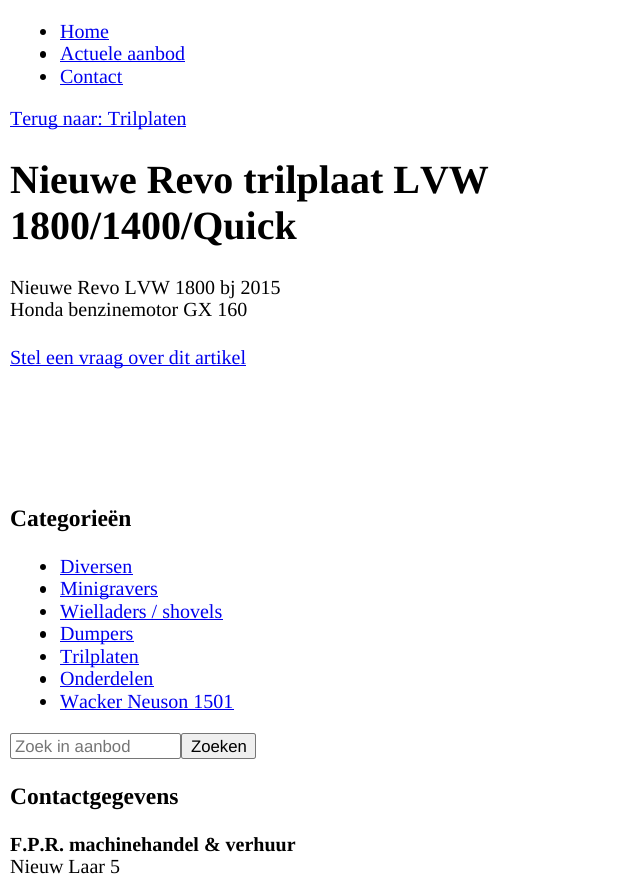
#include <cairo.h>
#include <math.h>
#include <stddef.h>

typedef struct { const char *family; double size; int italic, bold; unsigned color; } style_t;
static cairo_t *ctx;

static void ink(unsigned color) {
    cairo_set_source_rgb(ctx, (color >> 16) / 255.0, (color >> 8 & 255) / 255.0, (color & 255) / 255.0);
}

static void write(double x, double y, const char *s, const style_t *st) {
    cairo_select_font_face(ctx, st->family, st->italic ? CAIRO_FONT_SLANT_ITALIC : CAIRO_FONT_SLANT_NORMAL,
        st->bold ? CAIRO_FONT_WEIGHT_BOLD : CAIRO_FONT_WEIGHT_NORMAL);
    cairo_set_font_size(ctx, st->size);
    ink(st->color);
    cairo_move_to(ctx, x, y);
    cairo_show_text(ctx, s);
}

static void block(double x, double y, double w, double h, unsigned color) {
    ink(color);
    cairo_rectangle(ctx, x, y, w, h);
    cairo_fill(ctx);
}

static void round_path(double x, double y, double w, double h, double r) {
    cairo_new_sub_path(ctx);
    cairo_arc(ctx, x + w - r, y + h - r, r, 0, M_PI / 2);
    cairo_arc(ctx, x + r, y + h - r, r, M_PI / 2, M_PI);
    cairo_arc(ctx, x + r, y + r, r, M_PI, 1.5 * M_PI);
    cairo_arc(ctx, x + w - r, y + r, r, 1.5 * M_PI, 2 * M_PI);
    cairo_close_path(ctx);
}

static const style_t s1 = {"Liberation Serif", 20, 0, 0, 0x0000ee};
static const style_t s2 = {"Liberation Serif", 40, 0, 1, 0x000000};
static const style_t s3 = {"Liberation Serif", 20, 0, 0, 0x000000};
static const style_t s4 = {"Liberation Serif", 23.5, 0, 1, 0x000000};
static const style_t s5 = {"Liberation Sans", 16.75, 0, 0, 0x757575};
static const style_t s6 = {"Liberation Sans", 16.75, 0, 0, 0x000000};
static const style_t s7 = {"Liberation Serif", 20, 0, 1, 0x000000};

int main(void) {
    cairo_surface_t *surface = cairo_image_surface_create(CAIRO_FORMAT_RGB24, 641, 882);
    ctx = cairo_create(surface);
    cairo_font_options_t *options = cairo_font_options_create();
    cairo_font_options_set_hint_metrics(options, CAIRO_HINT_METRICS_OFF);
    cairo_font_options_set_hint_style(options, CAIRO_HINT_STYLE_NONE);
    cairo_set_font_options(ctx, options);
    cairo_set_miter_limit(ctx, 4);
    ink(0xffffff);
    cairo_paint(ctx);
    ink(0x000000);
    cairo_arc(ctx, 43, 32, 3, 0, 2 * M_PI);
    cairo_fill(ctx);
    write(60, 38, "Home", &s1);
    block(60, 39, 49, 1, 0x0000ee);
    ink(0x000000);
    round_path(40, 51, 6, 7, 3);
    cairo_fill(ctx);
    write(60, 60, "Actuele aanbod", &s1);
    block(60, 61, 125, 1, 0x0000ee);
    ink(0x000000);
    cairo_new_path(ctx);
    cairo_arc(ctx, 43, 77, 3, 0, 2 * M_PI);
    cairo_fill(ctx);
    write(60, 83, "Contact", &s1);
    block(60, 84, 63, 1, 0x0000ee);
    block(10, 126, 176, 1, 0x0000ee);
    write(10, 125, "Terug naar: Trilplaten", &s1);
    write(10, 193, "Nieuwe Revo trilplaat LVW", &s2);
    write(10, 239, "1800/1400/Quick", &s2);
    write(10, 294, "Nieuwe Revo LVW 1800 bj 2015", &s3);
    write(10, 316, "Honda benzinemotor GX 160", &s3);
    block(10, 365, 236, 1, 0x0000ee);
    write(10, 364, "Stel een vraag over dit artikel", &s1);
    write(10, 526, "Categorieën", &s4);
    cairo_new_path(ctx);
    cairo_arc(ctx, 43, 567, 3, 0, 2 * M_PI);
    cairo_fill(ctx);
    write(60, 573, "Diversen", &s1);
    block(60, 574, 73, 1, 0x0000ee);
    ink(0x000000);
    round_path(40, 586, 6, 7, 3);
    cairo_fill(ctx);
    block(60, 596, 98, 1, 0x0000ee);
    write(60, 595, "Minigravers", &s1);
    ink(0x000000);
    cairo_new_path(ctx);
    cairo_arc(ctx, 43, 612, 3, 0, 2 * M_PI);
    cairo_fill(ctx);
    write(60, 618, "Wielladers / shovels", &s1);
    block(60, 619, 163, 1, 0x0000ee);
    ink(0x000000);
    round_path(40, 631, 6, 7, 3);
    cairo_fill(ctx);
    block(60, 641, 74, 1, 0x0000ee);
    write(60, 640, "Dumpers", &s1);
    ink(0x000000);
    cairo_new_path(ctx);
    cairo_arc(ctx, 43, 657, 3, 0, 2 * M_PI);
    cairo_fill(ctx);
    block(60, 664, 79, 1, 0x0000ee);
    write(60, 663, "Trilplaten", &s1);
    ink(0x000000);
    round_path(40, 676, 6, 7, 3);
    cairo_fill(ctx);
    write(60, 685, "Onderdelen", &s1);
    block(60, 686, 94, 1, 0x0000ee);
    ink(0x000000);
    cairo_new_path(ctx);
    cairo_arc(ctx, 43, 702, 3, 0, 2 * M_PI);
    cairo_fill(ctx);
    write(60, 708, "Wacker Neuson 1501", &s1);
    block(60, 709, 174, 1, 0x0000ee);
    round_path(10.5, 733.5, 170, 25, 2);
    ink(0x767676);
    cairo_set_line_width(ctx, 1);
    cairo_stroke(ctx);
    write(15, 752, "Zoek in aanbod", &s5);
    ink(0xefefef);
    round_path(181.5, 733.5, 74, 25, 2);
    cairo_fill_preserve(ctx);
    ink(0x767676);
    cairo_stroke(ctx);
    write(191, 752, "Zoeken", &s6);
    write(10, 804, "Contactgegevens", &s4);
    write(10, 851, "F.P.R. machinehandel & verhuur", &s7);
    write(10, 873, "Nieuw Laar 5", &s3);
    cairo_surface_write_to_png(surface, "screenshot.png");
    cairo_font_options_destroy(options);
    cairo_destroy(ctx);
    cairo_surface_destroy(surface);
    return 0;
}
